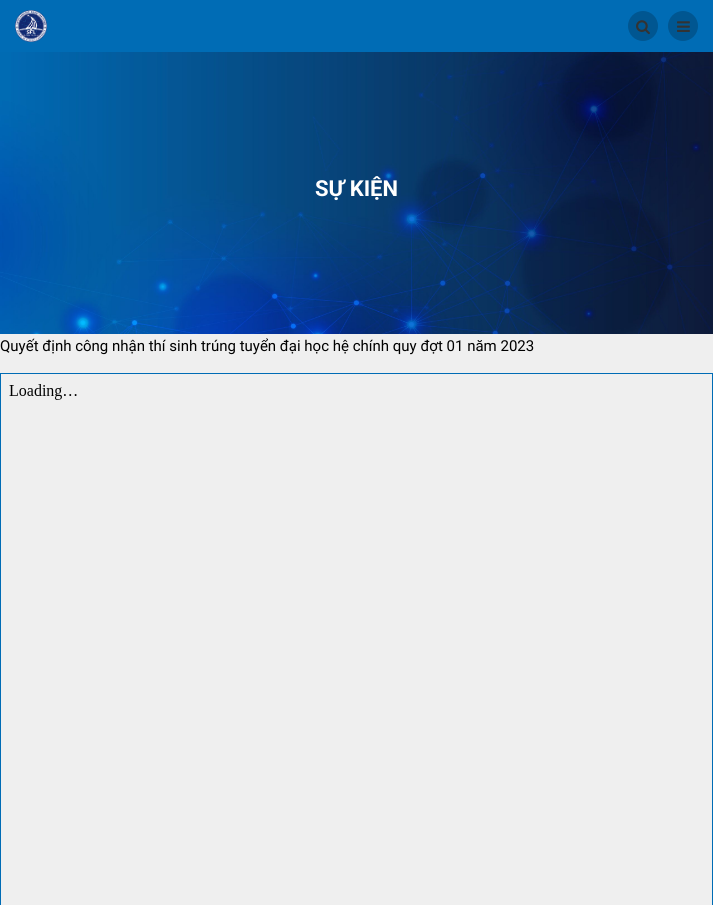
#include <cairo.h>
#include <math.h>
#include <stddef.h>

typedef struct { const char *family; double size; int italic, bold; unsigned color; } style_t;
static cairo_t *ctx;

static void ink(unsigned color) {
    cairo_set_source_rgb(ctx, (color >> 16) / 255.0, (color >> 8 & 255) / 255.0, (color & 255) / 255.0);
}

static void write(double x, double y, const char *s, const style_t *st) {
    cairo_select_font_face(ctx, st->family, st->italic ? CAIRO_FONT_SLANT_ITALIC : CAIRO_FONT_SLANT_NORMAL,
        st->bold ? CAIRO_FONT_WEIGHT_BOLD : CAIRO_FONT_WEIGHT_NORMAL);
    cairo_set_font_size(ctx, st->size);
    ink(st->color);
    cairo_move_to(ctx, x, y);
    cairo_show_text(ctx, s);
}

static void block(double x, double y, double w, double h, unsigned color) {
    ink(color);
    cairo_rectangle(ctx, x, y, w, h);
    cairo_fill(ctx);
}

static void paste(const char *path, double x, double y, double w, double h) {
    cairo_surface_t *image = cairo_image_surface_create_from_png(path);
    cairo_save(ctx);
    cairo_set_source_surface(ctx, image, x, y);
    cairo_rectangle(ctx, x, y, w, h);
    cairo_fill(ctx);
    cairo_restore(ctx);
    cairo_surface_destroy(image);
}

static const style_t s1 = {"Roboto", 22, 0, 1, 0xffffff};
static const style_t s2 = {"Roboto", 15, 0, 0, 0x000000};

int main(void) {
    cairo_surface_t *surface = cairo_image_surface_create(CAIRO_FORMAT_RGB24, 713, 905);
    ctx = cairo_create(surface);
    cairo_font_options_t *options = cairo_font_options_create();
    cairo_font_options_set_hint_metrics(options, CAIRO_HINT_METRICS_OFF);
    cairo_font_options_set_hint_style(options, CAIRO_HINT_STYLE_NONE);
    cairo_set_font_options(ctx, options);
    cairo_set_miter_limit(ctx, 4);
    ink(0x006cb5);
    cairo_paint(ctx);
    paste("pic1.png", 15, 10, 32, 32);
    ink(0x005691);
    cairo_arc(ctx, 643, 26, 15, 0, 2 * M_PI);
    cairo_fill(ctx);
    paste("pic2.png", 636, 20, 14, 15);
    cairo_arc(ctx, 683, 26, 15, 0, 2 * M_PI);
    cairo_fill(ctx);
    paste("pic3.png", 677, 21, 13, 11);
    paste("pic4.png", 0, 52, 713, 282);
    write(315, 196, "SỰ KIỆN", &s1);
    block(0, 334, 713, 571, 0xefefef);
    write(0, 351, "Quyết định công nhận thí sinh trúng tuyển đại học hệ chính quy đợt 01 năm 2023", &s2);
    block(0, 373, 713, 1, 0x006cb5);
    block(712, 373, 1, 532, 0x006cb5);
    block(0, 373, 1, 532, 0x006cb5);
    paste("pic5.png", 9, 384, 68, 16);
    cairo_surface_write_to_png(surface, "screenshot.png");
    cairo_font_options_destroy(options);
    cairo_destroy(ctx);
    cairo_surface_destroy(surface);
    return 0;
}
